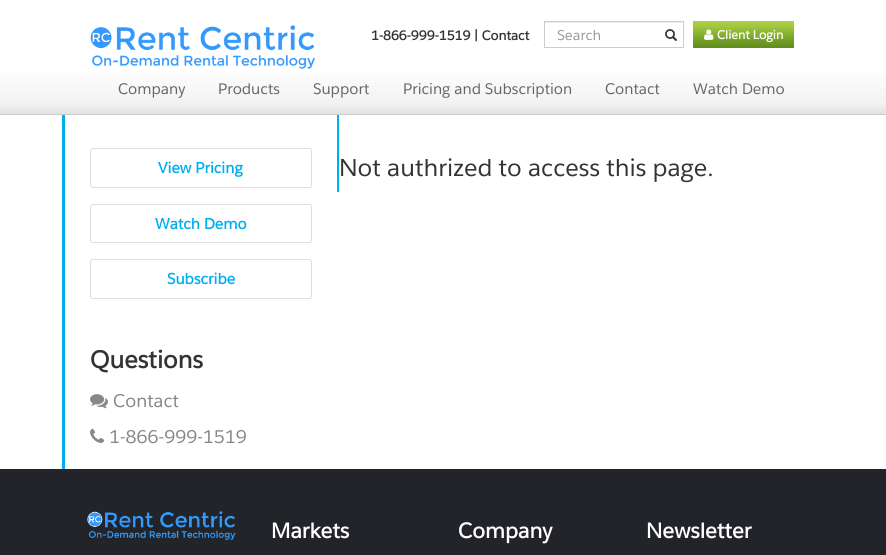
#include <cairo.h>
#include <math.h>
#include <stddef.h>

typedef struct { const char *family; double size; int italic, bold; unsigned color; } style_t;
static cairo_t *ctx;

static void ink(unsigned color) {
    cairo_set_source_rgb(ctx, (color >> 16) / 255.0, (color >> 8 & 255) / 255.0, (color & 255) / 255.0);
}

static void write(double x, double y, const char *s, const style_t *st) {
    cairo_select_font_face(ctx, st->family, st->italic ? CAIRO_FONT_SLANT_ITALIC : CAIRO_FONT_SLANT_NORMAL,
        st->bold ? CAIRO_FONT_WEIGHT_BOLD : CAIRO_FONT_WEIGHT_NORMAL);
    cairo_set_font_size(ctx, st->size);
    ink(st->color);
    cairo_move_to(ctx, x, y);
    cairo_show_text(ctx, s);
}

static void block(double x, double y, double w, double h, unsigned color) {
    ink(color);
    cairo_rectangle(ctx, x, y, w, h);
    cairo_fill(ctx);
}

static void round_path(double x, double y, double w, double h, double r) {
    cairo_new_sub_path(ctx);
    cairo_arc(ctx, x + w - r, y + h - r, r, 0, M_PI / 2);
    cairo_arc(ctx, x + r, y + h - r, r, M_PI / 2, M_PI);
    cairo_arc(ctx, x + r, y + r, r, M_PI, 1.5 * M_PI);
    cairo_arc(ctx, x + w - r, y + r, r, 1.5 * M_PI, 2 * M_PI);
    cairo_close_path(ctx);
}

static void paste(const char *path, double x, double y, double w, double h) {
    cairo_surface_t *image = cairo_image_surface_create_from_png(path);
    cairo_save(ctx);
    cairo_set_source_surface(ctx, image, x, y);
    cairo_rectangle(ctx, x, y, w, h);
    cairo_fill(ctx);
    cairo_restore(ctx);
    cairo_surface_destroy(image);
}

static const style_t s1 = {"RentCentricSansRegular", 13, 0, 1, 0x333333};
static const style_t s2 = {"RentCentricSansRegular", 14, 0, 0, 0x999999};
static const style_t s3 = {"RentCentricSansRegular", 12, 0, 1, 0xffffff};
static const style_t s4 = {"RentCentricSansRegular", 15, 0, 0, 0x666666};
static const style_t s5 = {"RentCentricSansRegular", 15, 0, 1, 0x00aeef};
static const style_t s6 = {"RentCentricSansRegular", 24, 0, 1, 0x333333};
static const style_t s7 = {"RentCentricSansRegular", 18, 0, 0, 0x888888};
static const style_t s8 = {"RentCentricSansRegular", 24, 0, 0, 0x333333};
static const style_t s9 = {"RentCentricSansRegular", 21, 0, 1, 0xffffff};

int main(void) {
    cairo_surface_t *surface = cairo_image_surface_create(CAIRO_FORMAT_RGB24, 886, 555);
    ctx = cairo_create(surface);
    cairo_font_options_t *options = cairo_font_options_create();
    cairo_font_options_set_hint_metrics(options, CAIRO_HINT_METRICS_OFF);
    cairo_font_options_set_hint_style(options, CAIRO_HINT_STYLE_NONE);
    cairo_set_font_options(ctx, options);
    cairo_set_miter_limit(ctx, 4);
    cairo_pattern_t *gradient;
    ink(0xffffff);
    cairo_paint(ctx);
    gradient = cairo_pattern_create_linear(443, 0, 443, 114);
    cairo_pattern_add_color_stop_rgba(gradient, 0, 1, 1, 1, 1);
    cairo_pattern_add_color_stop_rgba(gradient, 0.6, 0.996, 0.996, 0.996, 1);
    cairo_pattern_add_color_stop_rgba(gradient, 0.91, 0.949, 0.949, 0.949, 1);
    cairo_pattern_add_color_stop_rgba(gradient, 1, 0.882, 0.882, 0.882, 1);
    cairo_set_source(ctx, gradient);
    cairo_pattern_destroy(gradient);
    cairo_rectangle(ctx, 0, 73, 886, 41);
    cairo_fill(ctx);
    block(0, 114, 886, 1, 0xcccccc);
    paste("pic1.png", 90, 25, 226, 44);
    write(371, 40, "1-866-999-1519 | Contact", &s1);
    block(545, 22, 138, 1, 0xececec);
    cairo_rectangle(ctx, 544.5, 21.5, 139, 26);
    ink(0xcccccc);
    cairo_set_line_width(ctx, 1);
    cairo_stroke(ctx);
    write(557, 40, "Search", &s2);
    paste("pic2.png", 665, 29, 12, 12);
    gradient = cairo_pattern_create_linear(744, 21, 744, 48);
    cairo_pattern_add_color_stop_rgba(gradient, 0, 0.675, 0.816, 0.271, 1);
    cairo_pattern_add_color_stop_rgba(gradient, 0.21, 0.631, 0.776, 0.247, 1);
    cairo_pattern_add_color_stop_rgba(gradient, 0.76, 0.435, 0.604, 0.145, 1);
    cairo_pattern_add_color_stop_rgba(gradient, 1, 0.376, 0.553, 0.118, 1);
    cairo_set_source(ctx, gradient);
    cairo_pattern_destroy(gradient);
    cairo_rectangle(ctx, 693, 21, 101, 27);
    cairo_fill(ctx);
    paste("pic3.png", 704, 29, 10, 11);
    write(717, 39, "Client Login", &s3);
    write(118, 94, "Company", &s4);
    write(218, 94, "Products", &s4);
    write(313, 94, "Support", &s4);
    write(403, 94, "Pricing and Subscription", &s4);
    write(605, 94, "Contact", &s4);
    write(693, 94, "Watch Demo", &s4);
    block(62, 115, 3, 354, 0x00aeef);
    round_path(90.5, 148.5, 221, 39, 2.5);
    ink(0xdddddd);
    cairo_stroke(ctx);
    write(158, 173, "View Pricing", &s5);
    round_path(90.5, 204.5, 221, 38, 2.5);
    ink(0xdddddd);
    cairo_stroke(ctx);
    write(155, 229, "Watch Demo", &s5);
    round_path(90.5, 259.5, 221, 39, 2.5);
    ink(0xdddddd);
    cairo_stroke(ctx);
    write(167, 284, "Subscribe", &s5);
    write(90, 368, "Questions", &s6);
    paste("pic4.png", 90, 394, 18, 15);
    write(113, 407, "Contact", &s7);
    paste("pic5.png", 90, 428, 15, 15);
    write(109, 443, "1-866-999-1519", &s7);
    block(337, 115, 2, 77, 0x00aeef);
    write(339, 176, "Not authrized to access this page.", &s8);
    block(0, 469, 886, 86, 0x222429);
    paste("pic6.png", 87, 511, 149, 29);
    write(271, 538, "Markets", &s9);
    write(458, 538, "Company", &s9);
    write(646, 538, "Newsletter", &s9);
    cairo_surface_write_to_png(surface, "screenshot.png");
    cairo_font_options_destroy(options);
    cairo_destroy(ctx);
    cairo_surface_destroy(surface);
    return 0;
}
